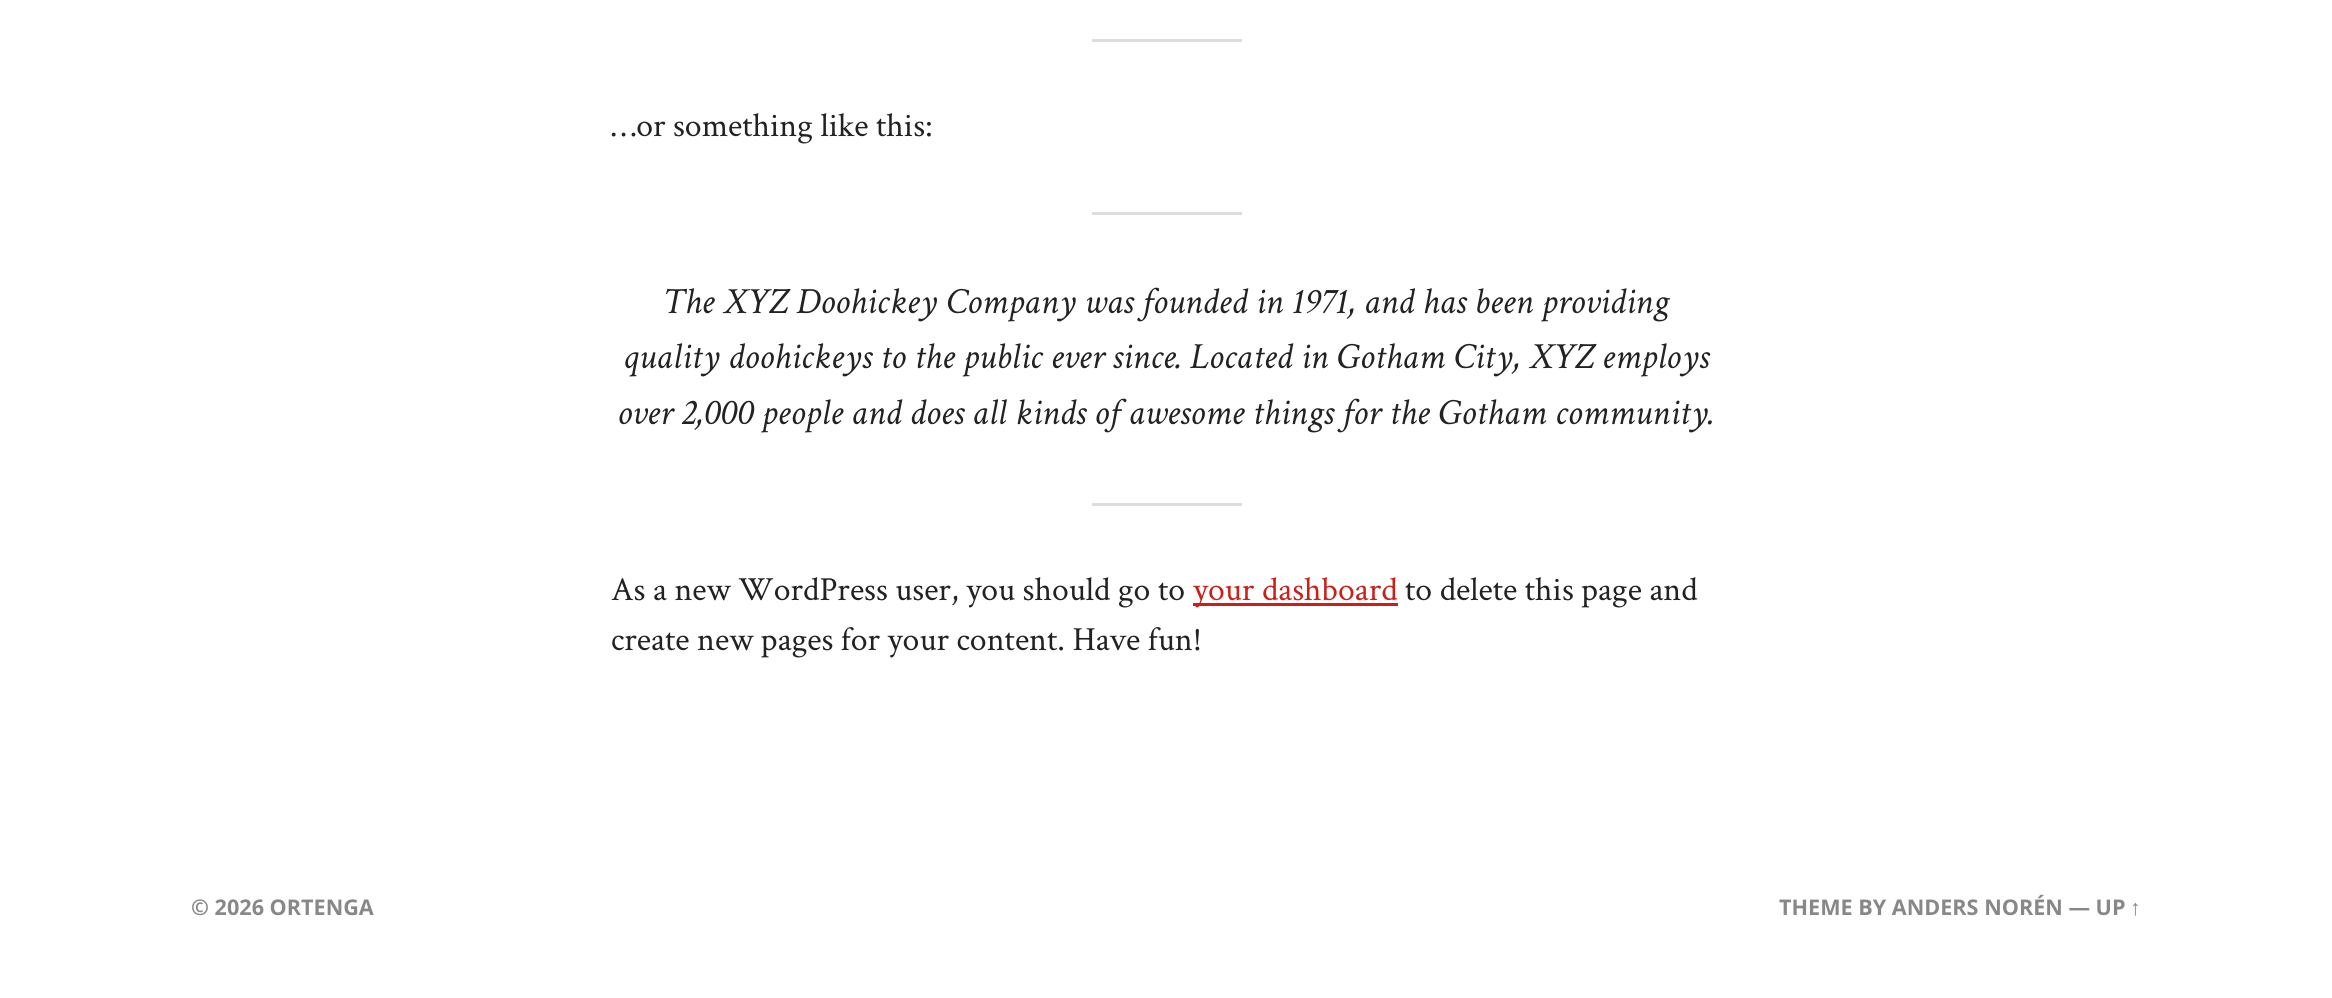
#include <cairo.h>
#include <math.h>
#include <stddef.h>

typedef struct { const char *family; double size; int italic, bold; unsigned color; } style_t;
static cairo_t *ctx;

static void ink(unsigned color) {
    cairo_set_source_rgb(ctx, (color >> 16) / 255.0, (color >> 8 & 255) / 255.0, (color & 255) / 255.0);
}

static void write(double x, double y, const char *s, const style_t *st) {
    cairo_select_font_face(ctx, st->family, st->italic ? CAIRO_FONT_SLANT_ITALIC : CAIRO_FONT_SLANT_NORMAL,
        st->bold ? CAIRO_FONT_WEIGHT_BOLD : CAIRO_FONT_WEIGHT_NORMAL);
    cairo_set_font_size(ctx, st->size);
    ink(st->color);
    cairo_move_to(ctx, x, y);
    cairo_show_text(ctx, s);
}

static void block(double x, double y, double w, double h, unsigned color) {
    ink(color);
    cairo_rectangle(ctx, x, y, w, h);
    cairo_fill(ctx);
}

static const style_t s1 = {"Crimson Text", 33.75, 0, 0, 0x222222};
static const style_t s2 = {"Crimson Text", 37.1, 1, 0, 0x222222};
static const style_t s3 = {"Crimson Text", 33.75, 0, 0, 0xca2017};
static const style_t s4 = {"Open Sans", 21.6, 0, 1, 0x888888};
static const style_t s5 = {"Liberation Sans", 21.6, 0, 1, 0x888888};

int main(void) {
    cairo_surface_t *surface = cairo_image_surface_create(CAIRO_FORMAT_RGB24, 2332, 998);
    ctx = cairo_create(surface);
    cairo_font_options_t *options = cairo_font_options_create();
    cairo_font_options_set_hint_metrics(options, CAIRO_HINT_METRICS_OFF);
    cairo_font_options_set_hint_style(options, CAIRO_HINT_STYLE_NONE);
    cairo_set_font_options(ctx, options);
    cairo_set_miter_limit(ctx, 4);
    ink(0xffffff);
    cairo_paint(ctx);
    block(1092, 39, 150, 3, 0xdddddd);
    write(611, 136, "…or something like this:", &s1);
    block(1092, 212, 150, 3, 0xdddddd);
    write(663, 313, "The XYZ Doohickey Company was founded in 1971, and has been providing", &s2);
    write(623, 368, "quality doohickeys to the public ever since. Located in Gotham City, XYZ employs", &s2);
    write(617, 424, "over 2,000 people and does all kinds of awesome things for the Gotham community.", &s2);
    block(1092, 503, 150, 3, 0xdddddd);
    write(611, 600, "As a new WordPress user, you should go to", &s1);
    block(1193, 603, 205, 3, 0xca2017);
    write(1193, 600, "your dashboard", &s3);
    write(1405, 600, "to delete this page and", &s1);
    write(611, 650, "create new pages for your content. Have fun!", &s1);
    write(191, 915, "© 2026 ORTENGA", &s4);
    write(1779, 915, "THEME BY ANDERS NORÉN — UP", &s4);
    write(2130, 915, "↑", &s5);
    cairo_surface_write_to_png(surface, "screenshot.png");
    cairo_font_options_destroy(options);
    cairo_destroy(ctx);
    cairo_surface_destroy(surface);
    return 0;
}
